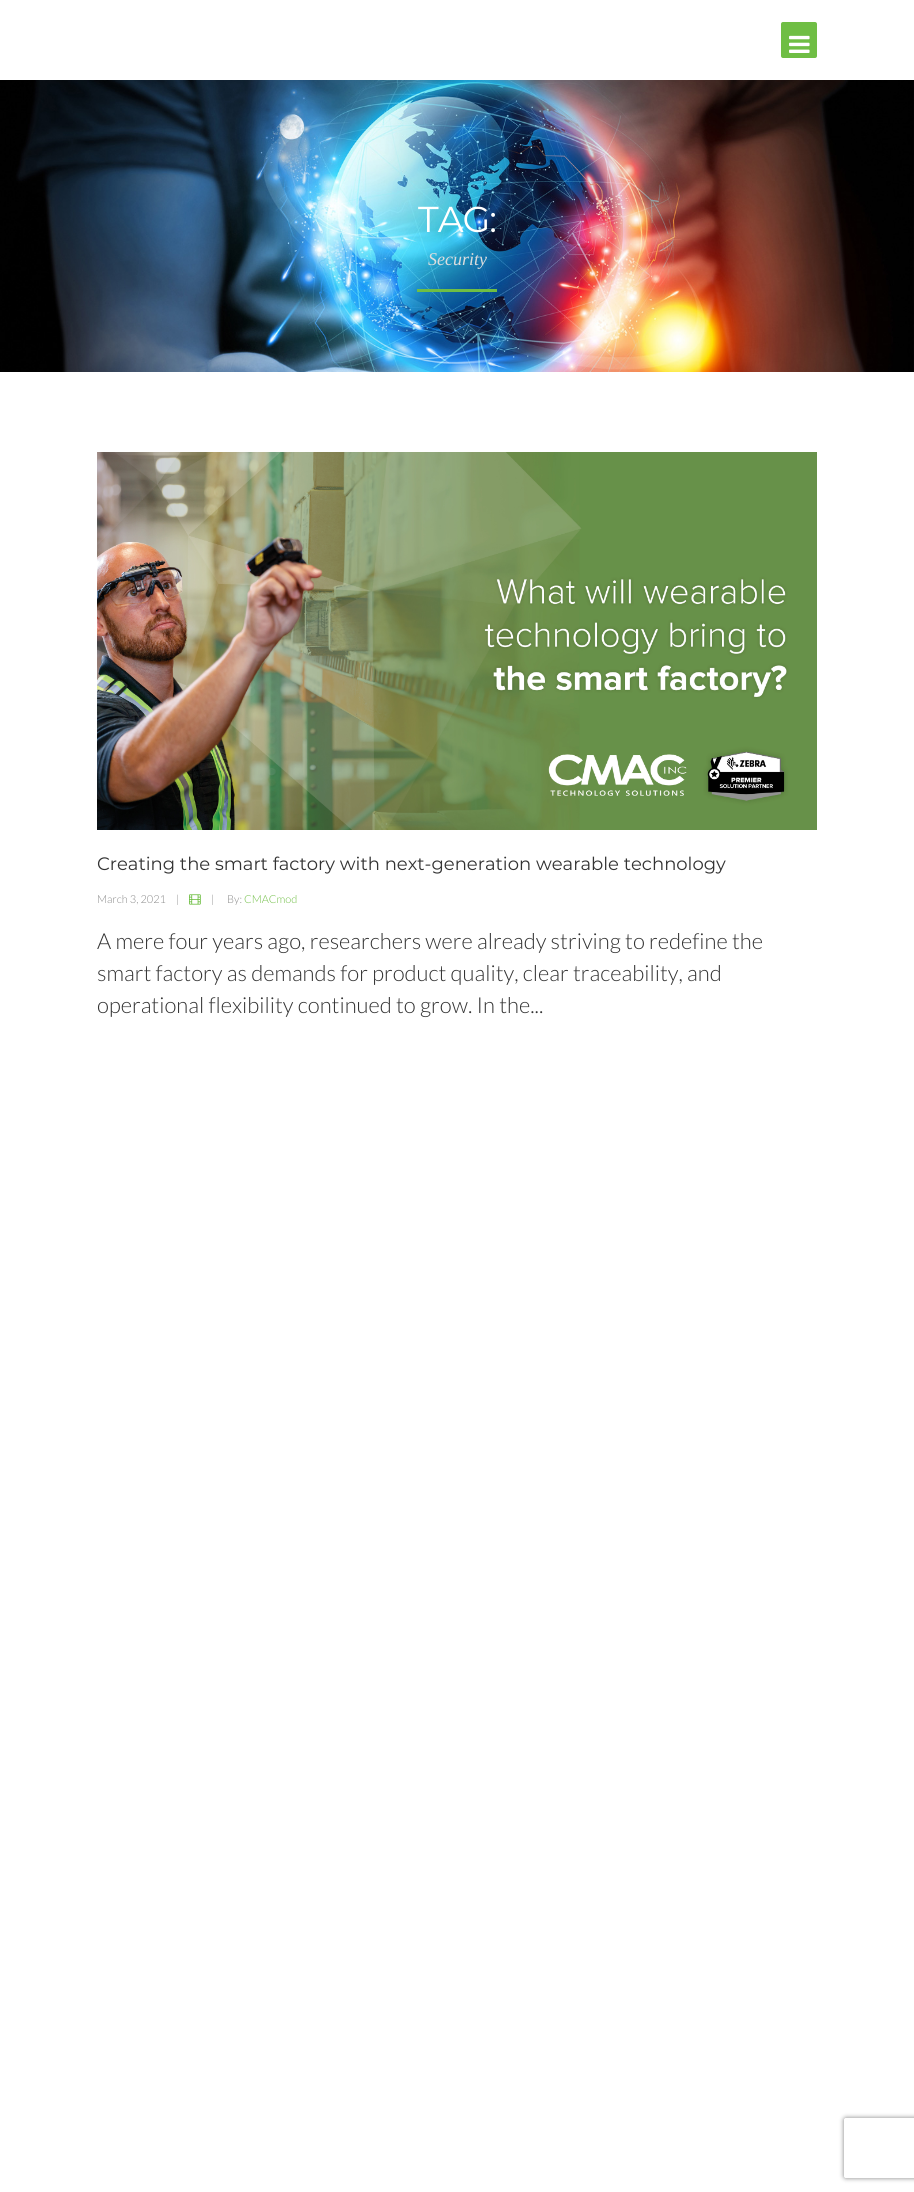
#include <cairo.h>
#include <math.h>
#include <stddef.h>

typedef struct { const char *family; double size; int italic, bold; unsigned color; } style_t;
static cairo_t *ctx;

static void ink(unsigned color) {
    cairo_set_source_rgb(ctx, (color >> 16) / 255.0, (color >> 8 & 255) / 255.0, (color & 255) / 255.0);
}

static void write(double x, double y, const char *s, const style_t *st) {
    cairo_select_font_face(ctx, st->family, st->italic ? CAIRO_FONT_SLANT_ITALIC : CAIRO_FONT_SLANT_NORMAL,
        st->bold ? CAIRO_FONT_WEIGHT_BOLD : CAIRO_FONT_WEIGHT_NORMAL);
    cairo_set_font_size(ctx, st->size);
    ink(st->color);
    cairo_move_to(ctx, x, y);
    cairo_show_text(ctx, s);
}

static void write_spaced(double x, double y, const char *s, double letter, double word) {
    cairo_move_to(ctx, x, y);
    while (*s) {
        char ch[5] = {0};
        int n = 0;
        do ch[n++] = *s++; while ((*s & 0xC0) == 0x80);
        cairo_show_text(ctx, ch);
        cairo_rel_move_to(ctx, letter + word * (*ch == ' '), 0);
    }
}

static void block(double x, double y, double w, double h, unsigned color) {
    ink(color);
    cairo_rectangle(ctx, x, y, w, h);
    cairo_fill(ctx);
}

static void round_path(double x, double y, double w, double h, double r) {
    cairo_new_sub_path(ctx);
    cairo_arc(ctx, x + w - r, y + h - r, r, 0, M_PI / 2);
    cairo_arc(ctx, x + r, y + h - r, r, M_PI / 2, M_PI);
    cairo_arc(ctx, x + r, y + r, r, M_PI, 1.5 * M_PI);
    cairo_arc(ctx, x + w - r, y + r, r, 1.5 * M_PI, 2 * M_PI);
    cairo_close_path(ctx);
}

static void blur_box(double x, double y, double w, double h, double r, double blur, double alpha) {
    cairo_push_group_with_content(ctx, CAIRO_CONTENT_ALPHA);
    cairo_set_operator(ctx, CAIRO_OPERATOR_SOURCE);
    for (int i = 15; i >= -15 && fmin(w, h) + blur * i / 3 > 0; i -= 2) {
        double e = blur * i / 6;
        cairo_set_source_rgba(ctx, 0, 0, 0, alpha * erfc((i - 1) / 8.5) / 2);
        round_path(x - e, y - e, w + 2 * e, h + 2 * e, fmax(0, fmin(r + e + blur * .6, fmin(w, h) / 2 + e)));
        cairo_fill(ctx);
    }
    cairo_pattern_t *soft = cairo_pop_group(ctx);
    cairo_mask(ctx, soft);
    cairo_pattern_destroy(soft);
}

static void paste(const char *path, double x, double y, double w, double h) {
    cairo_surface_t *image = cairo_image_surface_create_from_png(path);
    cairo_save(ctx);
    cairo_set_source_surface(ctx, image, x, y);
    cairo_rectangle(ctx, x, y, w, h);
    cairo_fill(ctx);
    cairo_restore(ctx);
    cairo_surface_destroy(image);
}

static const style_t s1 = {"Liberation Serif", 18, 1, 0, 0xdddddd};
static const style_t s2 = {"Montserrat", 18, 0, 0, 0x333333};
static const style_t s3 = {"Lato Light", 11, 0, 0, 0x888888};
static const style_t s4 = {"Lato Light", 11, 0, 0, 0x6fbe44};
static const style_t s5 = {"Lato Light", 22, 0, 0, 0x333333};

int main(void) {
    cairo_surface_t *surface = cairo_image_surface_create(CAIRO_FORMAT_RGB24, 914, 2192);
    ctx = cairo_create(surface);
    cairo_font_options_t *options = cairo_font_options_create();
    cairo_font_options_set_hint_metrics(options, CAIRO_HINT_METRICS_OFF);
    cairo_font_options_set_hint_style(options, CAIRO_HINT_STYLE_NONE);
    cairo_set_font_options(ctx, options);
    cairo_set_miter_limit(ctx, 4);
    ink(0xffffff);
    cairo_paint(ctx);
    ink(0x6fbe44);
    round_path(781, 22, 36, 36, 2);
    cairo_fill(ctx);
    paste("pic1.png", 789, 35, 21, 18);
    paste("pic2.png", 0, 80, 914, 292);
    cairo_select_font_face(ctx, "Montserrat", CAIRO_FONT_SLANT_NORMAL, CAIRO_FONT_WEIGHT_NORMAL);
    cairo_set_font_size(ctx, 36);
    ink(0xffffff);
    write_spaced(418, 232, "TAG:", -1, 0);
    write(428, 265, "Security", &s1);
    block(417, 289, 80, 3, 0x6fbe44);
    paste("pic3.png", 97, 452, 720, 378);
    write(97, 870, "Creating the smart factory with next-generation wearable technology", &s2);
    write(97, 903, "March 3, 2021", &s3);
    write(176, 903, "|", &s3);
    paste("pic4.png", 189, 894, 12, 11);
    write(211, 903, "|", &s3);
    write(227, 903, "By:", &s3);
    write(244, 903, "CMACmod", &s4);
    write(97, 949, "A mere four years ago, researchers were already striving to redefine the", &s5);
    write(97, 981, "smart factory as demands for product quality, clear traceability, and", &s5);
    write(97, 1013, "operational flexibility continued to grow. In the...", &s5);
    cairo_save(ctx);
    cairo_set_fill_rule(ctx, CAIRO_FILL_RULE_EVEN_ODD);
    cairo_new_path(ctx);
    cairo_move_to(ctx, 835, 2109);
    cairo_line_to(ctx, 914, 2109);
    cairo_line_to(ctx, 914, 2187);
    cairo_line_to(ctx, 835, 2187);
    cairo_close_path(ctx);
    cairo_move_to(ctx, 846, 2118);
    cairo_line_to(ctx, 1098, 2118);
    cairo_curve_to(ctx, 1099, 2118, 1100, 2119, 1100, 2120);
    cairo_line_to(ctx, 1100, 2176);
    cairo_curve_to(ctx, 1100, 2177, 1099, 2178, 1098, 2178);
    cairo_line_to(ctx, 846, 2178);
    cairo_curve_to(ctx, 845, 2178, 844, 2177, 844, 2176);
    cairo_line_to(ctx, 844, 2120);
    cairo_curve_to(ctx, 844, 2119, 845, 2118, 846, 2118);
    cairo_close_path(ctx);
    cairo_clip(ctx);
    ink(0x808080);
    blur_box(844, 2118, 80, 60, 2, 2.5, 1);
    cairo_restore(ctx);
    cairo_surface_write_to_png(surface, "screenshot.png");
    cairo_font_options_destroy(options);
    cairo_destroy(ctx);
    cairo_surface_destroy(surface);
    return 0;
}
